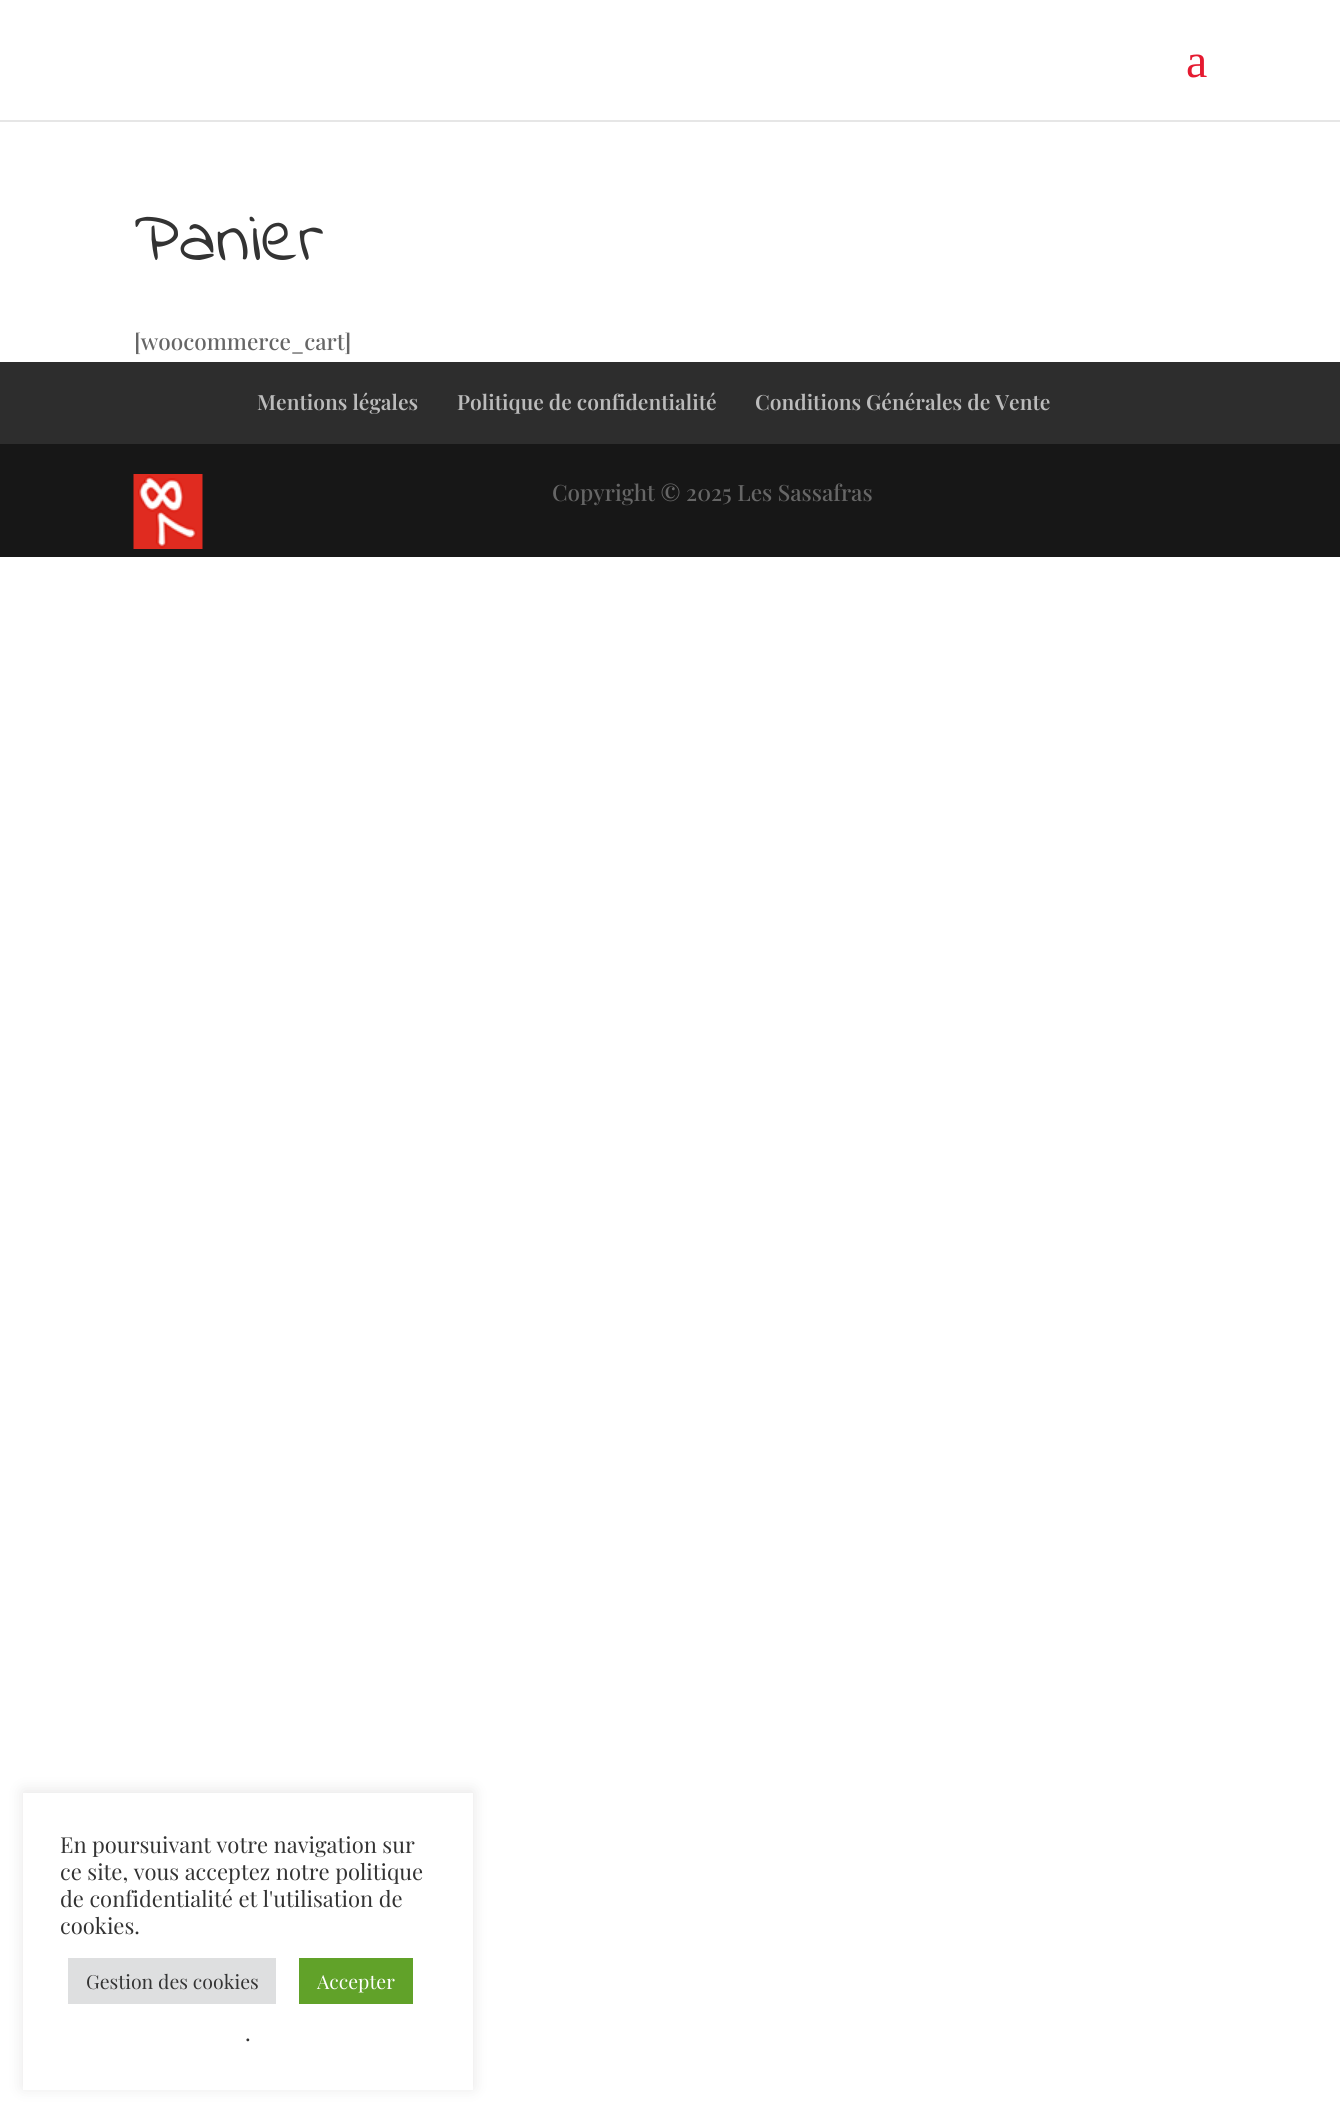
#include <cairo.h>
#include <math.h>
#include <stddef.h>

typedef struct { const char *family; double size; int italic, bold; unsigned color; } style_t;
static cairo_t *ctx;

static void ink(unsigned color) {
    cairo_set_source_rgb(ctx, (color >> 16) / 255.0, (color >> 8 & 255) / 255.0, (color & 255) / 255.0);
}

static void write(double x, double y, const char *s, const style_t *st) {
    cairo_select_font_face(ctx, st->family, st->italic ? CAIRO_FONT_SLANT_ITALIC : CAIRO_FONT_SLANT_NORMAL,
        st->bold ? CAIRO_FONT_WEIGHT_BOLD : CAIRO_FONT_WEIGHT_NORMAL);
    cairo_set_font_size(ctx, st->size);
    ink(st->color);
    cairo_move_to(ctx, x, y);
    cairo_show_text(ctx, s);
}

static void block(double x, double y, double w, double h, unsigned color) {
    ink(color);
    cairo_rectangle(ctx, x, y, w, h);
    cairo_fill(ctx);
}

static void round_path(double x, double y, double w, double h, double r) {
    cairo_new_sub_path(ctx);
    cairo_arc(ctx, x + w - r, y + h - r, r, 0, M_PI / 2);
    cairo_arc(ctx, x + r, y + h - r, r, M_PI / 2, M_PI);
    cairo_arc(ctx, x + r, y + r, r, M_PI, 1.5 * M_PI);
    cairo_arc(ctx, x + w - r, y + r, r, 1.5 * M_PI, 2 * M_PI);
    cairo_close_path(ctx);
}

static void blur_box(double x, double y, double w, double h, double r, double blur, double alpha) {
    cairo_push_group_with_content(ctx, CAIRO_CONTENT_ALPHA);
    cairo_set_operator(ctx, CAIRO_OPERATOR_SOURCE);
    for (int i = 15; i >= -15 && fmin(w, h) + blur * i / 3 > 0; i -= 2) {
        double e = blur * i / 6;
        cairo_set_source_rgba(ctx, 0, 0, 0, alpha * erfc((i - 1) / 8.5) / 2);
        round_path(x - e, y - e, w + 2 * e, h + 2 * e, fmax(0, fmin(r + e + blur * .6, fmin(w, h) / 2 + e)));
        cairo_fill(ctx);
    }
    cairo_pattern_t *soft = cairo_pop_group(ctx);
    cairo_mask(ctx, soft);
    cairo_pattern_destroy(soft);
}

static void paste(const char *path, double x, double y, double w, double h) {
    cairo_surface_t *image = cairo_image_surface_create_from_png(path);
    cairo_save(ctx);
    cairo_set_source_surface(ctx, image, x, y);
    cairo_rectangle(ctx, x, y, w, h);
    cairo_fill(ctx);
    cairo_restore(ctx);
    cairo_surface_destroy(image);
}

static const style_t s1 = {"Liberation Serif", 48, 0, 0, 0xe51a30};
static const style_t s2 = {"Indie Flower", 72, 0, 0, 0x333333};
static const style_t s3 = {"Playfair Display Medium", 22.5, 0, 0, 0x666666};
static const style_t s4 = {"Playfair Display SemiBold", 21, 0, 0, 0xbbbbbb};
static const style_t s5 = {"Playfair Display", 22, 0, 0, 0x333333};
static const style_t s6 = {"Playfair Display", 19.5, 0, 0, 0x333333};
static const style_t s7 = {"Playfair Display", 19.5, 0, 0, 0xffffff};
static const style_t s8 = {"Playfair Display", 22.5, 0, 0, 0x333333};

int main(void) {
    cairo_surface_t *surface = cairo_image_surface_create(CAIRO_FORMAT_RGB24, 1340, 2111);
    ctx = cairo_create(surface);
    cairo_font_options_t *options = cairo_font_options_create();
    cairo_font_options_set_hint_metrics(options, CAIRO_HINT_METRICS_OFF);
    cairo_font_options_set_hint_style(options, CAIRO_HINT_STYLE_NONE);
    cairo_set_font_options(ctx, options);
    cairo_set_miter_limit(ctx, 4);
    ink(0xffffff);
    cairo_paint(ctx);
    block(0, 120, 1340, 2, 0xe6e6e6);
    write(1186, 77, "a", &s1);
    write(134, 260, "Panier", &s2);
    write(134, 350, "[woocommerce_cart]", &s3);
    block(0, 362, 1340, 82, 0x2d2d2d);
    write(257, 410, "Mentions légales", &s4);
    write(457, 410, "Politique de confidentialité", &s4);
    write(755, 410, "Conditions Générales de Vente", &s4);
    block(0, 444, 1340, 113, 0x171717);
    paste("pic1.png", 133, 474, 70, 75);
    write(552, 501, "Copyright © 2025 Les Sassafras", &s3);
    ink(0xacabab);
    blur_box(23, 1791, 450, 297, 0, 7.5, 0.3);
    block(23, 1793, 450, 297, 0xffffff);
    write(60, 1853, "En poursuivant votre navigation sur", &s5);
    write(60, 1880, "ce site, vous acceptez notre politique", &s5);
    write(60, 1907, "de confidentialité et l'utilisation de", &s5);
    write(60, 1934, "cookies.", &s5);
    block(68, 1958, 208, 46, 0xdedfe0);
    write(86, 1989, "Gestion des cookies", &s6);
    block(299, 1958, 114, 46, 0x61a229);
    write(317, 1989, "Accepter", &s7);
    write(245, 2041, ".", &s8);
    cairo_surface_write_to_png(surface, "screenshot.png");
    cairo_font_options_destroy(options);
    cairo_destroy(ctx);
    cairo_surface_destroy(surface);
    return 0;
}
